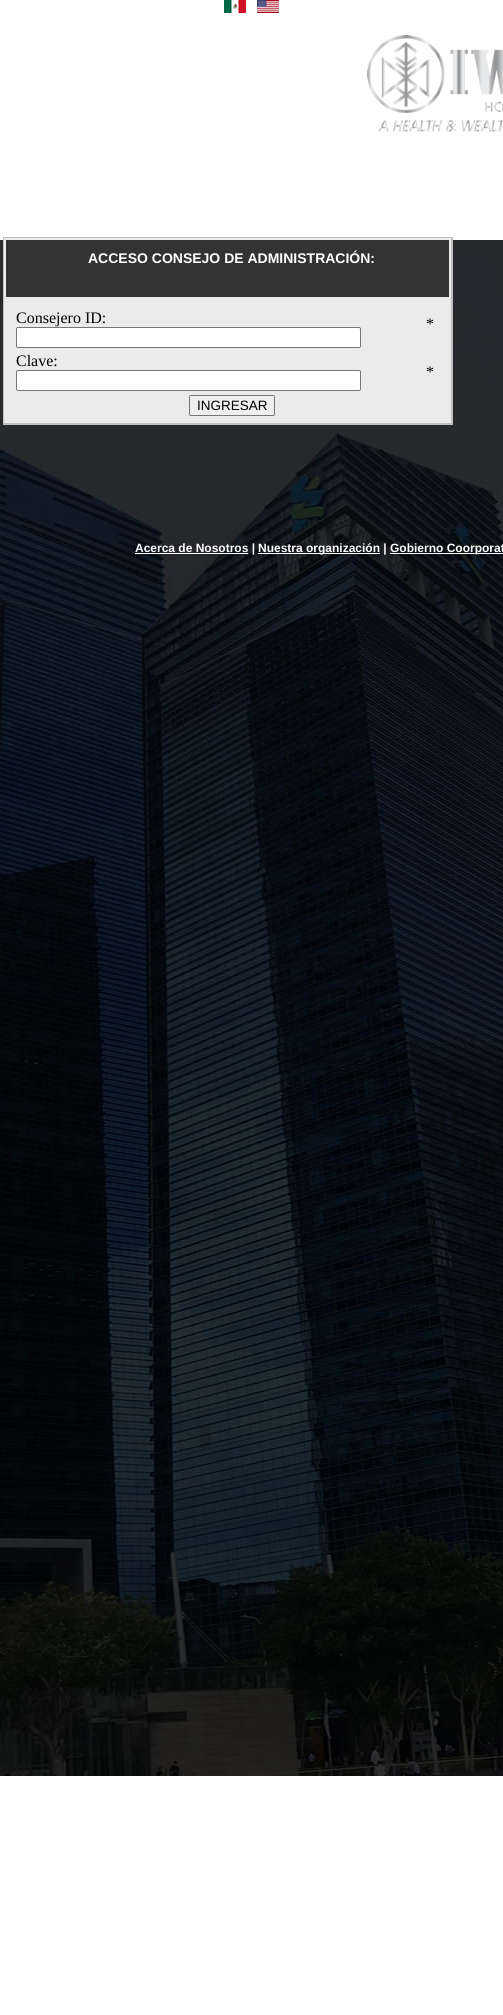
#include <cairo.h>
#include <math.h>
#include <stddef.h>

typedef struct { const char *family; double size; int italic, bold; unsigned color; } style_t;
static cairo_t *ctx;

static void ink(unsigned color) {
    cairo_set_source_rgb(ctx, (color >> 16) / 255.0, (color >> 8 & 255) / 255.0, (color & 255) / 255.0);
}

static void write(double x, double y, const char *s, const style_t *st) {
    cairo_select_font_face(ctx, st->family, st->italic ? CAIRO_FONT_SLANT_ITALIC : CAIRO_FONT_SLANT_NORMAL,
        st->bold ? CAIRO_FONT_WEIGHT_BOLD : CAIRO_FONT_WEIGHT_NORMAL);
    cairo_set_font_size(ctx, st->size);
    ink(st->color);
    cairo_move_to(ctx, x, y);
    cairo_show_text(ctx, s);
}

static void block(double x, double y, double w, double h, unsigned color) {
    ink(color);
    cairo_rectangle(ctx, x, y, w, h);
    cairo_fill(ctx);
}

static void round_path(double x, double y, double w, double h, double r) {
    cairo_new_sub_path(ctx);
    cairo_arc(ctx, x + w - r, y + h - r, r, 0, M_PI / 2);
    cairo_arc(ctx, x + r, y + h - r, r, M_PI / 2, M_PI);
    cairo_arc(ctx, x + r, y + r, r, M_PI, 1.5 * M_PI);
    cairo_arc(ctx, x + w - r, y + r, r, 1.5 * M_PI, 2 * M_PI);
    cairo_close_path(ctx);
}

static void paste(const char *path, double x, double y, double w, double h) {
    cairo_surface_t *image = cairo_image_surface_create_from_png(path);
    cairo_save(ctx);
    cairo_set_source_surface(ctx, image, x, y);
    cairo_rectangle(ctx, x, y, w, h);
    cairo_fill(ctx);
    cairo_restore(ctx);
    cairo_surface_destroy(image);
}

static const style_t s1 = {"Liberation Sans", 14, 0, 1, 0xffffff};
static const style_t s2 = {"Liberation Serif", 16, 0, 0, 0x000000};
static const style_t s3 = {"Liberation Sans", 13.5, 0, 0, 0x000000};
static const style_t s4 = {"Liberation Sans", 12, 0, 1, 0xffffff};

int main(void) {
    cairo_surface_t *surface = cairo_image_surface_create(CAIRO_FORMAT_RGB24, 503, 2015);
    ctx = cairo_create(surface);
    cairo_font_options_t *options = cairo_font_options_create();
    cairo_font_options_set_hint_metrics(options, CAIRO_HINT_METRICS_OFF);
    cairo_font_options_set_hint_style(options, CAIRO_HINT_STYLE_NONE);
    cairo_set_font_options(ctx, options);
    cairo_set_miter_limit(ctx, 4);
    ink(0xffffff);
    cairo_paint(ctx);
    paste("pic1.png", 0, 240, 503, 1536);
    paste("pic2.png", 224, 0, 22, 13);
    paste("pic3.png", 257, 0, 22, 13);
    paste("pic4.png", 367, 35, 136, 97);
    block(4, 238, 447, 185, 0xebebeb);
    block(3, 237, 450, 1, 0xc0c0c0);
    block(451, 237, 2, 188, 0xc0c0c0);
    block(3, 423, 450, 2, 0xc0c0c0);
    block(3, 237, 1, 188, 0xc0c0c0);
    block(6, 240, 443, 57, 0x333333);
    write(88, 263, "ACCESO CONSEJO DE ADMINISTRACIÓN:", &s1);
    write(16, 323, "Consejero ID:", &s2);
    ink(0xffffff);
    round_path(16.5, 327.5, 344, 20, 1.5);
    cairo_fill_preserve(ctx);
    ink(0x767676);
    cairo_set_line_width(ctx, 1);
    cairo_stroke(ctx);
    write(426, 329, "*", &s2);
    write(16, 366, "Clave:", &s2);
    ink(0xffffff);
    round_path(16.5, 370.5, 344, 20, 1.5);
    cairo_fill_preserve(ctx);
    ink(0x767676);
    cairo_stroke(ctx);
    write(426, 377, "*", &s2);
    ink(0xefefef);
    round_path(189.5, 395.5, 85, 20, 1.5);
    cairo_fill_preserve(ctx);
    ink(0x767676);
    cairo_stroke(ctx);
    write(197, 410, "INGRESAR", &s3);
    block(135, 553, 113, 1, 0xffffff);
    write(135, 552, "Acerca de Nosotros |", &s4);
    block(258, 553, 122, 1, 0xffffff);
    write(258, 552, "Nuestra organización |", &s4);
    block(390, 553, 113, 1, 0xffffff);
    write(390, 552, "Gobierno Coorporat", &s4);
    cairo_surface_write_to_png(surface, "screenshot.png");
    cairo_font_options_destroy(options);
    cairo_destroy(ctx);
    cairo_surface_destroy(surface);
    return 0;
}
